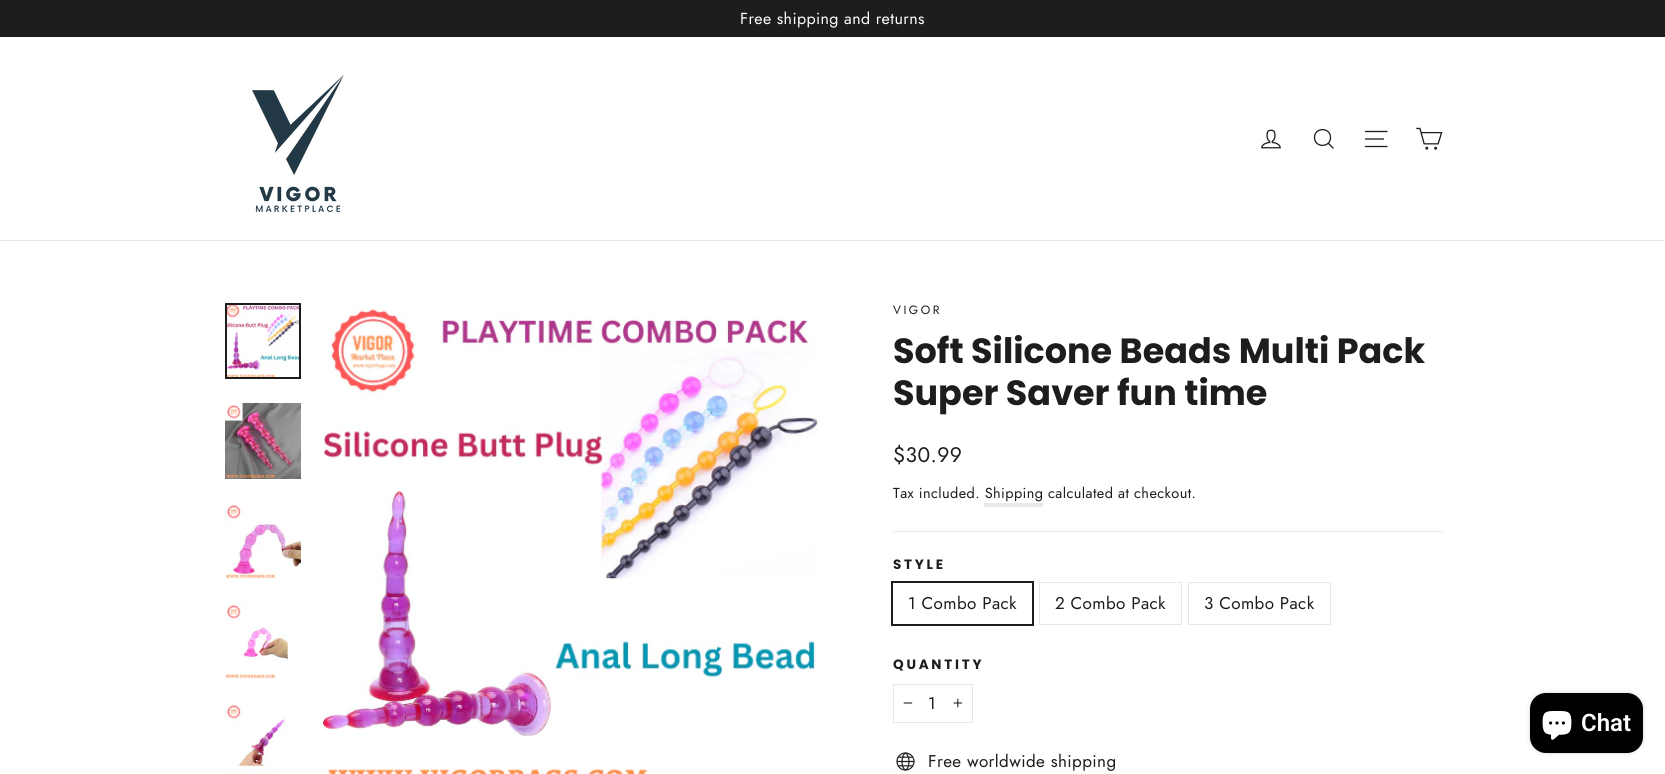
#include <cairo.h>
#include <math.h>
#include <stddef.h>

typedef struct { const char *family; double size; int italic, bold; unsigned color; } style_t;
static cairo_t *ctx;

static void ink(unsigned color) {
    cairo_set_source_rgb(ctx, (color >> 16) / 255.0, (color >> 8 & 255) / 255.0, (color & 255) / 255.0);
}

static void write(double x, double y, const char *s, const style_t *st) {
    cairo_select_font_face(ctx, st->family, st->italic ? CAIRO_FONT_SLANT_ITALIC : CAIRO_FONT_SLANT_NORMAL,
        st->bold ? CAIRO_FONT_WEIGHT_BOLD : CAIRO_FONT_WEIGHT_NORMAL);
    cairo_set_font_size(ctx, st->size);
    ink(st->color);
    cairo_move_to(ctx, x, y);
    cairo_show_text(ctx, s);
}

static void write_spaced(double x, double y, const char *s, double letter, double word) {
    cairo_move_to(ctx, x, y);
    while (*s) {
        char ch[5] = {0};
        int n = 0;
        do ch[n++] = *s++; while ((*s & 0xC0) == 0x80);
        cairo_show_text(ctx, ch);
        cairo_rel_move_to(ctx, letter + word * (*ch == ' '), 0);
    }
}

static void block(double x, double y, double w, double h, unsigned color) {
    ink(color);
    cairo_rectangle(ctx, x, y, w, h);
    cairo_fill(ctx);
}

static void round_path(double x, double y, double w, double h, double r) {
    cairo_new_sub_path(ctx);
    cairo_arc(ctx, x + w - r, y + h - r, r, 0, M_PI / 2);
    cairo_arc(ctx, x + r, y + h - r, r, M_PI / 2, M_PI);
    cairo_arc(ctx, x + r, y + r, r, M_PI, 1.5 * M_PI);
    cairo_arc(ctx, x + w - r, y + r, r, 1.5 * M_PI, 2 * M_PI);
    cairo_close_path(ctx);
}

static void blur_box(double x, double y, double w, double h, double r, double blur, double alpha) {
    cairo_push_group_with_content(ctx, CAIRO_CONTENT_ALPHA);
    cairo_set_operator(ctx, CAIRO_OPERATOR_SOURCE);
    for (int i = 15; i >= -15 && fmin(w, h) + blur * i / 3 > 0; i -= 2) {
        double e = blur * i / 6;
        cairo_set_source_rgba(ctx, 0, 0, 0, alpha * erfc((i - 1) / 8.5) / 2);
        round_path(x - e, y - e, w + 2 * e, h + 2 * e, fmax(0, fmin(r + e + blur * .6, fmin(w, h) / 2 + e)));
        cairo_fill(ctx);
    }
    cairo_pattern_t *soft = cairo_pop_group(ctx);
    cairo_mask(ctx, soft);
    cairo_pattern_destroy(soft);
}

static void paste(const char *path, double x, double y, double w, double h) {
    cairo_surface_t *image = cairo_image_surface_create_from_png(path);
    cairo_save(ctx);
    cairo_set_source_surface(ctx, image, x, y);
    cairo_rectangle(ctx, x, y, w, h);
    cairo_fill(ctx);
    cairo_restore(ctx);
    cairo_surface_destroy(image);
}

static const style_t s1 = {"Poppins", 35, 0, 1, 0x1c1d1d};
static const style_t s2 = {"Roboto SemiBold", 24, 0, 0, 0xffffff};

int main(void) {
    cairo_surface_t *surface = cairo_image_surface_create(CAIRO_FORMAT_RGB24, 1665, 774);
    ctx = cairo_create(surface);
    cairo_font_options_t *options = cairo_font_options_create();
    cairo_font_options_set_hint_metrics(options, CAIRO_HINT_METRICS_OFF);
    cairo_font_options_set_hint_style(options, CAIRO_HINT_STYLE_NONE);
    cairo_set_font_options(ctx, options);
    cairo_set_miter_limit(ctx, 4);
    ink(0xffffff);
    cairo_paint(ctx);
    block(0, 0, 1665, 37, 0x1c1d1d);
    cairo_select_font_face(ctx, "Jost", CAIRO_FONT_SLANT_NORMAL, CAIRO_FONT_WEIGHT_NORMAL);
    cairo_set_font_size(ctx, 16);
    ink(0xffffff);
    write_spaced(740, 24, "Free shipping and returns", 0.4, 0);
    block(0, 240, 1665, 1, 0xe8e8e1);
    paste("pic1.png", 252, 75, 92, 138);
    paste("pic2.png", 1261, 129, 20, 20);
    cairo_new_path(ctx);
    cairo_move_to(ctx, 1330.5, 137.5);
    cairo_curve_to(ctx, 1330.5, 148, 1314.5, 148, 1314.5, 137.5);
    cairo_curve_to(ctx, 1314.5, 127, 1330.5, 127, 1330.5, 137.5);
    cairo_close_path(ctx);
    cairo_move_to(ctx, 1333.5, 148.5);
    cairo_line_to(ctx, 1328.5, 143.5);
    ink(0x1c1d1d);
    cairo_set_line_width(ctx, 1.3);
    cairo_stroke(ctx);
    cairo_new_path(ctx);
    cairo_move_to(ctx, 1365, 131.5);
    cairo_line_to(ctx, 1387.5, 131.5);
    cairo_move_to(ctx, 1365, 139);
    cairo_line_to(ctx, 1384, 139);
    cairo_move_to(ctx, 1365, 146.5);
    cairo_line_to(ctx, 1387.5, 146.5);
    cairo_stroke(ctx);
    paste("pic3.png", 1416, 127, 27, 23);
    paste("pic4.png", 227, 305, 72, 72);
    cairo_rectangle(ctx, 226, 304, 74, 74);
    cairo_set_line_width(ctx, 2);
    cairo_stroke(ctx);
    paste("pic5.png", 225, 403, 76, 76);
    paste("pic6.png", 225, 503, 76, 76);
    paste("pic7.png", 225, 603, 65, 76);
    paste("pic8.png", 225, 703, 61, 71);
    paste("pic9.png", 323, 308, 495, 466);
    cairo_set_font_size(ctx, 12);
    write_spaced(893, 314, "VIGOR", 2.5, 0);
    write(893, 363, "Soft Silicone Beads Multi Pack", &s1);
    write(893, 405, "Super Saver fun time", &s1);
    cairo_select_font_face(ctx, "Jost", CAIRO_FONT_SLANT_NORMAL, CAIRO_FONT_WEIGHT_NORMAL);
    cairo_set_font_size(ctx, 21);
    write_spaced(893, 462, "$30.99", 0.4, 0);
    cairo_set_font_size(ctx, 14.5);
    write_spaced(893, 498, "Tax included. Shipping", 0.4, 0);
    write_spaced(1048, 498, "calculated at checkout.", 0.4, 0);
    block(984, 503, 59, 4, 0xe8e8e8);
    block(893, 531, 550, 1, 0xe8e8e1);
    cairo_select_font_face(ctx, "Poppins", CAIRO_FONT_SLANT_NORMAL, CAIRO_FONT_WEIGHT_BOLD);
    cairo_set_font_size(ctx, 13.5);
    ink(0x1c1d1d);
    write_spaced(893, 569, "STYLE", 2.75, 0);
    cairo_rectangle(ctx, 892, 582, 141, 43);
    cairo_stroke(ctx);
    cairo_select_font_face(ctx, "Jost", CAIRO_FONT_SLANT_NORMAL, CAIRO_FONT_WEIGHT_NORMAL);
    cairo_set_font_size(ctx, 17);
    write_spaced(908, 609, "1 Combo Pack", 0.4, 0);
    cairo_rectangle(ctx, 1039.5, 582.5, 142, 42);
    ink(0xe8e8e1);
    cairo_set_line_width(ctx, 1);
    cairo_stroke(ctx);
    ink(0x1c1d1d);
    write_spaced(1055, 609, "2 Combo Pack", 0.4, 0);
    cairo_rectangle(ctx, 1188.5, 582.5, 142, 42);
    ink(0xe8e8e1);
    cairo_stroke(ctx);
    ink(0x1c1d1d);
    write_spaced(1204, 609, "3 Combo Pack", 0.4, 0);
    cairo_select_font_face(ctx, "Poppins", CAIRO_FONT_SLANT_NORMAL, CAIRO_FONT_WEIGHT_BOLD);
    cairo_set_font_size(ctx, 13.5);
    write_spaced(893, 669, "QUANTITY", 2.75, 0);
    cairo_rectangle(ctx, 893.5, 684.5, 79, 38);
    ink(0xe8e8e1);
    cairo_stroke(ctx);
    paste("pic10.png", 903, 702, 10, 2);
    cairo_select_font_face(ctx, "Jost", CAIRO_FONT_SLANT_NORMAL, CAIRO_FONT_WEIGHT_NORMAL);
    cairo_set_font_size(ctx, 17);
    ink(0x1c1d1d);
    write_spaced(928, 709, "1", 0.4, 0);
    paste("pic11.png", 953, 698, 10, 10);
    paste("pic12.png", 896, 752, 19, 19);
    write_spaced(928, 767, "Free worldwide shipping", 0.4, 0);
    ink(0x000000);
    blur_box(1530, 693, 113, 60, 16, 2.5, 0.15);
    ink(0x000000);
    round_path(1530, 693, 113, 60, 16);
    cairo_fill(ctx);
    paste("pic13.png", 1542, 711, 30, 29);
    write(1581, 731, "Chat", &s2);
    cairo_surface_write_to_png(surface, "screenshot.png");
    cairo_font_options_destroy(options);
    cairo_destroy(ctx);
    cairo_surface_destroy(surface);
    return 0;
}
